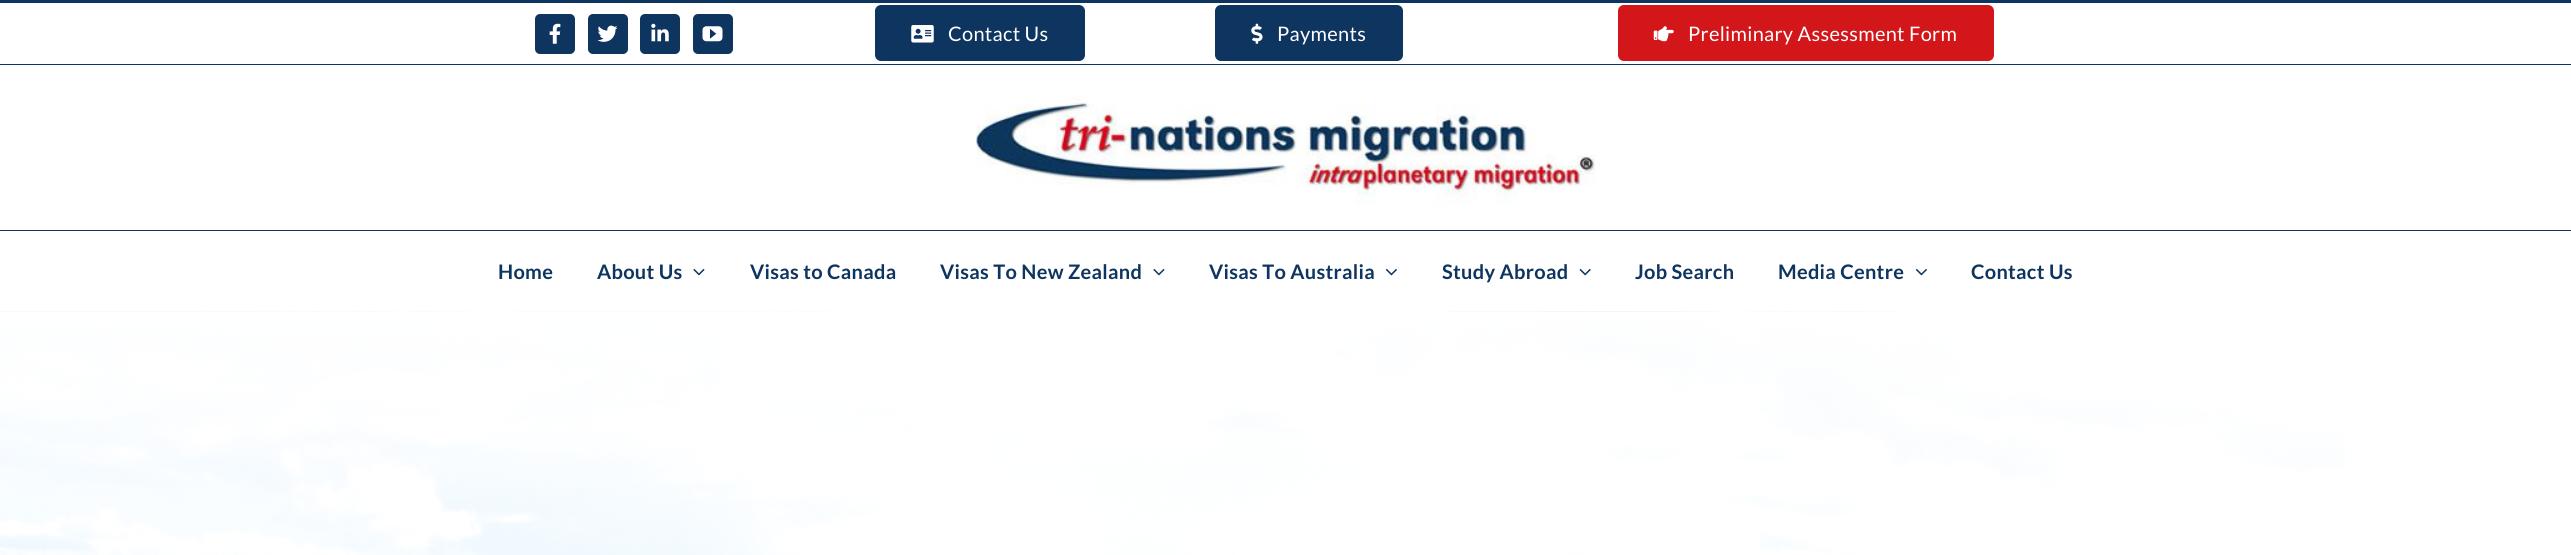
#include <cairo.h>
#include <math.h>
#include <stddef.h>

static cairo_t *ctx;

static void ink(unsigned color) {
    cairo_set_source_rgb(ctx, (color >> 16) / 255.0, (color >> 8 & 255) / 255.0, (color & 255) / 255.0);
}

static void write_spaced(double x, double y, const char *s, double letter, double word) {
    cairo_move_to(ctx, x, y);
    while (*s) {
        char ch[5] = {0};
        int n = 0;
        do ch[n++] = *s++; while ((*s & 0xC0) == 0x80);
        cairo_show_text(ctx, ch);
        cairo_rel_move_to(ctx, letter + word * (*ch == ' '), 0);
    }
}

static void block(double x, double y, double w, double h, unsigned color) {
    ink(color);
    cairo_rectangle(ctx, x, y, w, h);
    cairo_fill(ctx);
}

static void round_path(double x, double y, double w, double h, double r) {
    cairo_new_sub_path(ctx);
    cairo_arc(ctx, x + w - r, y + h - r, r, 0, M_PI / 2);
    cairo_arc(ctx, x + r, y + h - r, r, M_PI / 2, M_PI);
    cairo_arc(ctx, x + r, y + r, r, M_PI, 1.5 * M_PI);
    cairo_arc(ctx, x + w - r, y + r, r, 1.5 * M_PI, 2 * M_PI);
    cairo_close_path(ctx);
}

static void paste(const char *path, double x, double y, double w, double h) {
    cairo_surface_t *image = cairo_image_surface_create_from_png(path);
    cairo_save(ctx);
    cairo_set_source_surface(ctx, image, x, y);
    cairo_rectangle(ctx, x, y, w, h);
    cairo_fill(ctx);
    cairo_restore(ctx);
    cairo_surface_destroy(image);
}

int main(void) {
    cairo_surface_t *surface = cairo_image_surface_create(CAIRO_FORMAT_RGB24, 2571, 555);
    ctx = cairo_create(surface);
    cairo_font_options_t *options = cairo_font_options_create();
    cairo_font_options_set_hint_metrics(options, CAIRO_HINT_METRICS_OFF);
    cairo_font_options_set_hint_style(options, CAIRO_HINT_STYLE_NONE);
    cairo_set_font_options(ctx, options);
    cairo_set_miter_limit(ctx, 4);
    ink(0xffffff);
    cairo_paint(ctx);
    block(0, 0, 2571, 3, 0x0e355f);
    block(0, 64, 2571, 1, 0x0e355f);
    round_path(535, 14, 40, 40, 5);
    cairo_fill(ctx);
    paste("pic1.png", 549, 23, 12, 21);
    round_path(588, 14, 40, 40, 5);
    cairo_fill(ctx);
    paste("pic2.png", 597, 25, 21, 17);
    round_path(640, 14, 40, 40, 5);
    cairo_fill(ctx);
    paste("pic3.png", 651, 23, 18, 19);
    round_path(693, 14, 40, 40, 5);
    cairo_fill(ctx);
    paste("pic4.png", 702, 26, 21, 16);
    round_path(875, 5, 210, 56, 6);
    cairo_fill(ctx);
    paste("pic5.png", 911, 25, 23, 18);
    cairo_select_font_face(ctx, "Lato", CAIRO_FONT_SLANT_NORMAL, CAIRO_FONT_WEIGHT_NORMAL);
    cairo_set_font_size(ctx, 20);
    ink(0xffffff);
    write_spaced(948, 41, "Contact Us", 0.3, 0);
    ink(0x0e355f);
    round_path(1215, 5, 188, 56, 6);
    cairo_fill(ctx);
    paste("pic6.png", 1251, 23, 12, 21);
    ink(0xffffff);
    write_spaced(1277, 41, "Payments", 0.3, 0);
    ink(0xd21619);
    round_path(1618, 5, 376, 56, 6);
    cairo_fill(ctx);
    paste("pic7.png", 1653, 26, 21, 16);
    ink(0xffffff);
    write_spaced(1688, 41, "Preliminary Assessment Form", 0.3, 0);
    paste("pic8.png", 976, 95, 619, 110);
    block(0, 230, 2571, 1, 0x0e355f);
    cairo_select_font_face(ctx, "Lato", CAIRO_FONT_SLANT_NORMAL, CAIRO_FONT_WEIGHT_BOLD);
    write_spaced(498, 279, "Home", 0.3, 0);
    write_spaced(597, 279, "About Us", 0.3, 0);
    paste("pic9.png", 693, 268, 12, 8);
    write_spaced(750, 279, "Visas to Canada", 0.3, 0);
    write_spaced(940, 279, "Visas To New Zealand", 0.3, 0);
    paste("pic9.png", 1153, 268, 12, 8);
    write_spaced(1209, 279, "Visas To Australia", 0.3, 0);
    paste("pic10.png", 1385, 268, 12, 8);
    write_spaced(1442, 279, "Study Abroad", 0.3, 0);
    paste("pic11.png", 1579, 268, 12, 8);
    write_spaced(1635, 279, "Job Search", 0.3, 0);
    write_spaced(1778, 279, "Media Centre", 0.3, 0);
    paste("pic10.png", 1915, 268, 12, 8);
    write_spaced(1971, 279, "Contact Us", 0.3, 0);
    paste("pic12.png", 0, 311, 2345, 244);
    cairo_surface_write_to_png(surface, "screenshot.png");
    cairo_font_options_destroy(options);
    cairo_destroy(ctx);
    cairo_surface_destroy(surface);
    return 0;
}
